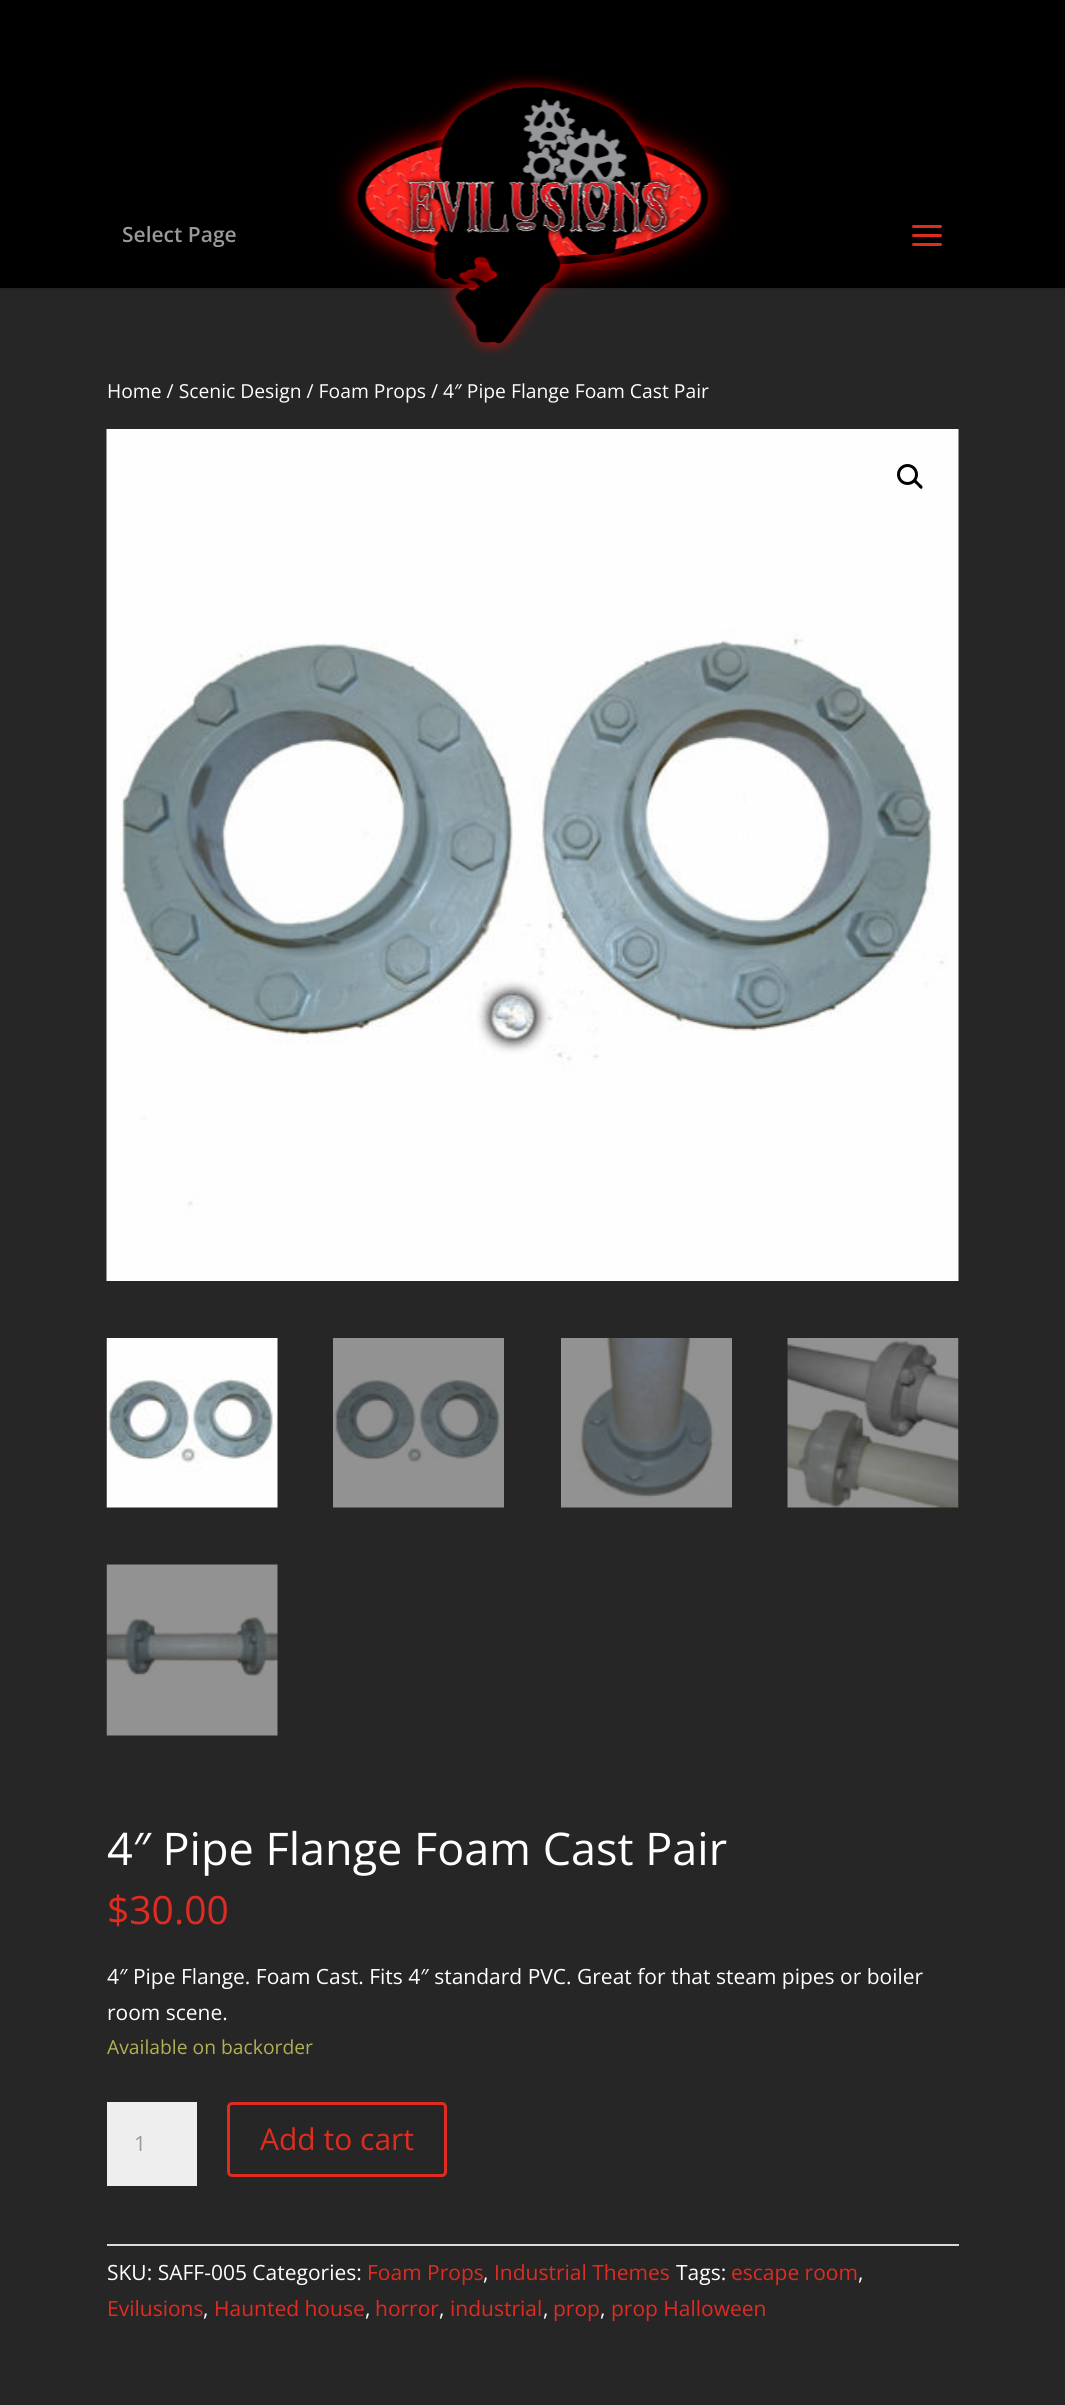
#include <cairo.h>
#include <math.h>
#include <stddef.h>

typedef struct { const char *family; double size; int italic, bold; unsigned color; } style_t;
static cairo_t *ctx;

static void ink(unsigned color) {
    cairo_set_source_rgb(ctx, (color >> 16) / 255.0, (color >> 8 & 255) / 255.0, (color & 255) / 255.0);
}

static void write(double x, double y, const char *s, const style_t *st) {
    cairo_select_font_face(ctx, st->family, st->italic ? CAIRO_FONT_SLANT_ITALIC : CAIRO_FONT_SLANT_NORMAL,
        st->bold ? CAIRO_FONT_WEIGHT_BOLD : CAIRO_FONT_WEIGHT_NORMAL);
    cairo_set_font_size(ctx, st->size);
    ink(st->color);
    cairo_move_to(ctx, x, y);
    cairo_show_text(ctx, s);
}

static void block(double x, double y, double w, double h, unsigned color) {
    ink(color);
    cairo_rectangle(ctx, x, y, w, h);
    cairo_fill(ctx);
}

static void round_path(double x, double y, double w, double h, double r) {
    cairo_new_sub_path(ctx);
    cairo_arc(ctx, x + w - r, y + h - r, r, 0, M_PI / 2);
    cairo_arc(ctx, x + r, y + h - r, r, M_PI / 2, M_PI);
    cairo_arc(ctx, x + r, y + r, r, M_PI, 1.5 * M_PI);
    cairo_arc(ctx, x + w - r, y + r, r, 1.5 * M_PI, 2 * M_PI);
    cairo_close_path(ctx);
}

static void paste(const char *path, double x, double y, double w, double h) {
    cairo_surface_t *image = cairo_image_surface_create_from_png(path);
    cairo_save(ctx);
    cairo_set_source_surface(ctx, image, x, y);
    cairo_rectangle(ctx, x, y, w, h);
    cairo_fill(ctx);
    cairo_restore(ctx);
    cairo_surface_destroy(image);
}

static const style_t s1 = {"Open Sans SemiBold", 21, 0, 0, 0x999999};
static const style_t s2 = {"Open Sans", 19.3, 0, 0, 0xffffff};
static const style_t s3 = {"Open Sans", 45, 0, 0, 0xffffff};
static const style_t s4 = {"Open Sans", 39, 0, 0, 0xe02b20};
static const style_t s5 = {"Open Sans", 21, 0, 0, 0xffffff};
static const style_t s6 = {"Open Sans", 19.3, 0, 0, 0xb3af54};
static const style_t s7 = {"Open Sans", 21, 0, 0, 0x999999};
static const style_t s8 = {"Open Sans", 30, 0, 0, 0xe02b20};
static const style_t s9 = {"Open Sans", 21, 0, 0, 0xe02b20};

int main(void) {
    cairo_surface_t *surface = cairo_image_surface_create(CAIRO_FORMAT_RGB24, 1065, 2405);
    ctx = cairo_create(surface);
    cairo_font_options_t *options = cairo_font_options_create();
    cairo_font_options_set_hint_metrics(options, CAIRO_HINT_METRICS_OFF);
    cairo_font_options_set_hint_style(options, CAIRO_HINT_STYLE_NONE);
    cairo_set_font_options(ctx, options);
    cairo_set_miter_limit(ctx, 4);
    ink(0x262626);
    cairo_paint(ctx);
    block(0, 288, 1065, 2, 0x222222);
    block(0, 0, 1065, 288, 0x000000);
    paste("pic2.png", 335, 74, 396, 281);
    cairo_set_source_rgba(ctx, 0, 0, 0, 0.05);
    cairo_rectangle(ctx, 351, 210, 363, 48);
    cairo_fill(ctx);
    write(122, 242, "Select Page", &s1);
    paste("pic1.png", 912, 225, 30, 21);
    write(107, 398, "Home / Scenic Design / Foam Props / 4″ Pipe Flange Foam Cast Pair", &s2);
    paste("pic3.png", 106, 429, 853, 852);
    cairo_arc(ctx, 907.5, 474.5, 9, 0, 2 * M_PI);
    ink(0x000000);
    cairo_set_line_width(ctx, 3);
    cairo_stroke(ctx);
    cairo_new_path(ctx);
    cairo_move_to(ctx, 914, 480);
    cairo_curve_to(ctx, 915.5, 478, 918, 482, 919, 483);
    cairo_curve_to(ctx, 920, 484, 924, 486.5, 922, 488.5);
    cairo_curve_to(ctx, 920.5, 490, 918, 486, 917, 485);
    cairo_curve_to(ctx, 916, 484, 912, 481.5, 914, 480);
    cairo_close_path(ctx);
    cairo_fill(ctx);
    paste("pic4.png", 106, 1338, 172, 170);
    paste("pic5.png", 333, 1338, 171, 170);
    paste("pic6.png", 561, 1338, 171, 170);
    paste("pic7.png", 787, 1338, 172, 170);
    paste("pic8.png", 106, 1564, 172, 172);
    write(107, 1865, "4″ Pipe Flange Foam Cast Pair", &s3);
    write(107, 1924, "$30.00", &s4);
    write(107, 1984, "4″ Pipe Flange. Foam Cast. Fits 4″ standard PVC. Great for that steam pipes or boiler", &s5);
    write(107, 2020, "room scene.", &s5);
    write(107, 2054, "Available on backorder", &s6);
    block(107, 2102, 90, 84, 0xeeeeee);
    write(134, 2151, "1", &s7);
    round_path(228.5, 2103.5, 217, 72, 3.5);
    ink(0xe02b20);
    cairo_stroke(ctx);
    write(260, 2150, "Add to cart", &s8);
    block(107, 2244, 852, 2, 0xdadada);
    write(107, 2280, "SKU: SAFF-005 Categories:", &s5);
    write(367, 2280, "Foam Props", &s9);
    write(483, 2280, ",", &s5);
    write(494, 2280, "Industrial Themes", &s9);
    write(676, 2280, "Tags:", &s5);
    write(731, 2280, "escape room", &s9);
    write(858, 2280, ",", &s5);
    write(107, 2316, "Evilusions", &s9);
    write(203, 2316, ",", &s5);
    write(214, 2316, "Haunted house", &s9);
    write(365, 2316, ",", &s5);
    write(375, 2316, "horror", &s9);
    write(439, 2316, ",", &s5);
    write(450, 2316, "industrial", &s9);
    write(543, 2316, ",", &s5);
    write(553, 2316, "prop", &s9);
    write(600, 2316, ",", &s5);
    write(611, 2316, "prop Halloween", &s9);
    cairo_surface_write_to_png(surface, "screenshot.png");
    cairo_font_options_destroy(options);
    cairo_destroy(ctx);
    cairo_surface_destroy(surface);
    return 0;
}
